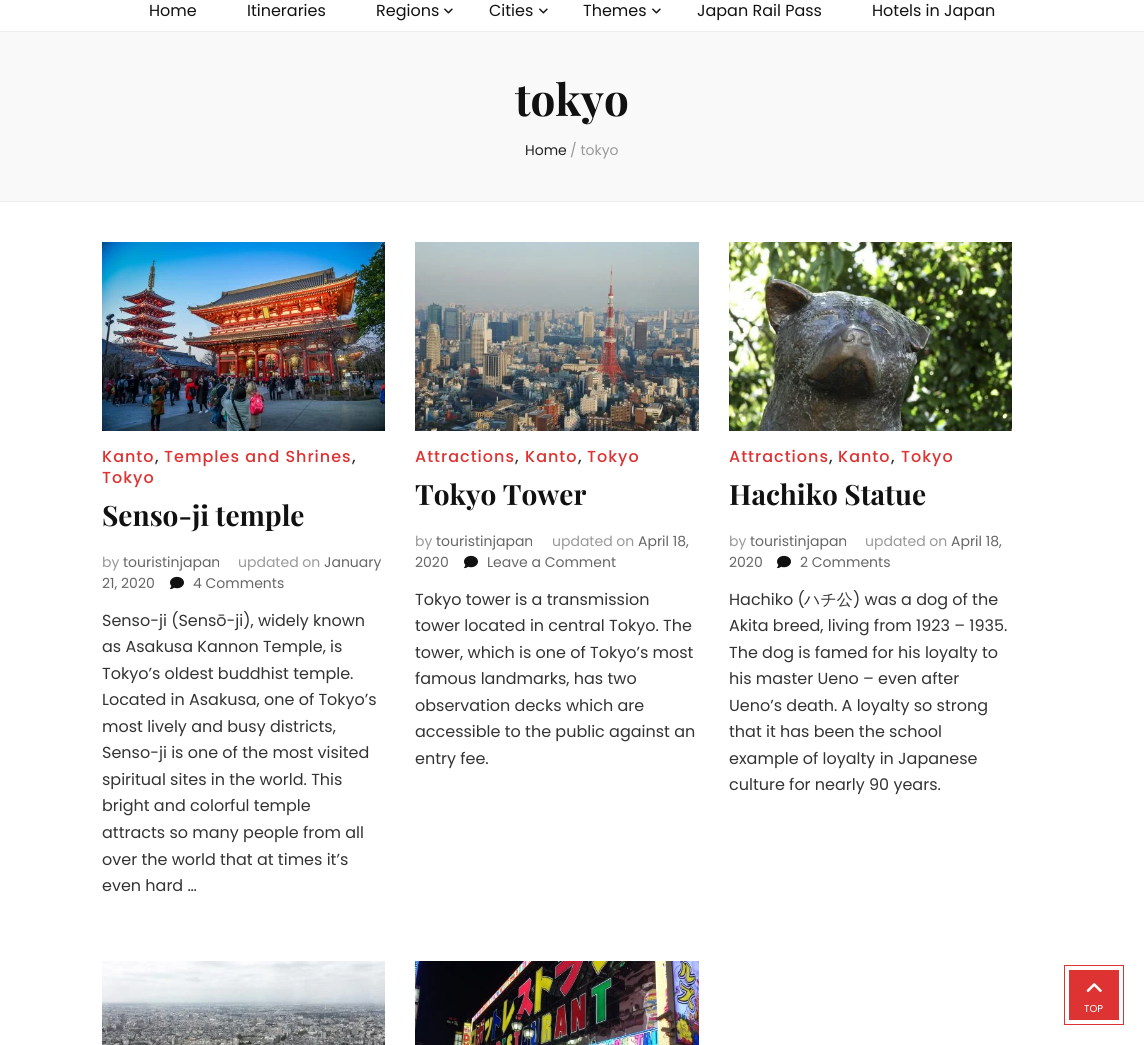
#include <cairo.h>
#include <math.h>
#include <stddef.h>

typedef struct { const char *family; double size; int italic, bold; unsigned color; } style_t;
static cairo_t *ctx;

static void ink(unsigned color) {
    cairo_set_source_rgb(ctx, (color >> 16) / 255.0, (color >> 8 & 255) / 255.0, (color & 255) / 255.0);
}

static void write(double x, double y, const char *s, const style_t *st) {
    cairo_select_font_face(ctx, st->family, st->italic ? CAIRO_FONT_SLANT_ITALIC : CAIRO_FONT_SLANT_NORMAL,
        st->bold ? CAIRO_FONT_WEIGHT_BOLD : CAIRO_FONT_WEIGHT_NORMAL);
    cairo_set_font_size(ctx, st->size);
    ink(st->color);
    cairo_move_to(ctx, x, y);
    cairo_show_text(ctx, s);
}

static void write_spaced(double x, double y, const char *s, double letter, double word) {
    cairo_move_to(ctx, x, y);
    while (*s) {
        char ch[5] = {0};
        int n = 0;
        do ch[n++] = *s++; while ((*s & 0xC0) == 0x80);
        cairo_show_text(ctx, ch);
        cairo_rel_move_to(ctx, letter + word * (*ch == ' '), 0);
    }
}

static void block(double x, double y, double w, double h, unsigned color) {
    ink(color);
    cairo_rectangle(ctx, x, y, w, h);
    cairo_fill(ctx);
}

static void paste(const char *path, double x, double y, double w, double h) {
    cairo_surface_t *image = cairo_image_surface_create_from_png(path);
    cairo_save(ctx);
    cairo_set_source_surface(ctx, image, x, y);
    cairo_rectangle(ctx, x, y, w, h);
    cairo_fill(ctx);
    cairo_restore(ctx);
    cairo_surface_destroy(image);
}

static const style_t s1 = {"Poppins", 16, 0, 0, 0x111111};
static const style_t s2 = {"Playfair Display", 44, 0, 1, 0x111111};
static const style_t s3 = {"Poppins", 14, 0, 0, 0x222222};
static const style_t s4 = {"Poppins", 14, 0, 0, 0x999999};
static const style_t s5 = {"Playfair Display", 28, 0, 1, 0x111111};
static const style_t s6 = {"Poppins", 14, 0, 0, 0x666666};
static const style_t s7 = {"Poppins", 16, 0, 0, 0x333333};
static const style_t s8 = {"WenQuanYi Zen Hei Medium", 16, 0, 0, 0x333333};
static const style_t s9 = {"Poppins", 10, 0, 0, 0xffffff};

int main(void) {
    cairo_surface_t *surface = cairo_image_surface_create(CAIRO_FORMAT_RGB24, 1144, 1045);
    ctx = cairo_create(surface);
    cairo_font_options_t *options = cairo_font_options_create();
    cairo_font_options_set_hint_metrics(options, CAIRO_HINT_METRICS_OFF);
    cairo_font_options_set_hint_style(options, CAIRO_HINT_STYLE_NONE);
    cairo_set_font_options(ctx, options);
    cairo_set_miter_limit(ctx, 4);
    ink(0xffffff);
    cairo_paint(ctx);
    block(0, 31, 1144, 1, 0xeeeeee);
    write(149, 16, "Home", &s1);
    write(247, 16, "Itineraries", &s1);
    write(376, 16, "Regions", &s1);
    paste("pic1.png", 444, 8, 9, 6);
    write(489, 16, "Cities", &s1);
    paste("pic1.png", 539, 8, 9, 6);
    write(583, 16, "Themes", &s1);
    paste("pic1.png", 652, 8, 9, 6);
    write(697, 16, "Japan Rail Pass", &s1);
    write(872, 16, "Hotels in Japan", &s1);
    block(0, 32, 1144, 169, 0xf9f9f9);
    block(0, 201, 1144, 1, 0xeeeeee);
    write(515, 116, "tokyo", &s2);
    write(525, 155, "Home", &s3);
    write(570, 155, "/ tokyo", &s4);
    paste("pic2.png", 102, 242, 283, 189);
    cairo_select_font_face(ctx, "Poppins Medium", CAIRO_FONT_SLANT_NORMAL, CAIRO_FONT_WEIGHT_NORMAL);
    cairo_set_font_size(ctx, 16);
    ink(0xdd3333);
    write_spaced(102, 462, "Kanto", 1, 0);
    ink(0x333333);
    write_spaced(155, 462, ",", 1, 0);
    ink(0xdd3333);
    write_spaced(164, 462, "Temples and Shrines", 1, 0);
    ink(0x333333);
    write_spaced(352, 462, ",", 1, 0);
    ink(0xdd3333);
    write_spaced(102, 483, "Tokyo", 1, 0);
    write(102, 526, "Senso-ji temple", &s5);
    write(102, 567, "by", &s4);
    write(123, 567, "touristinjapan", &s6);
    write(238, 567, "updated on", &s4);
    write(324, 567, "January", &s6);
    write(102, 588, "21, 2020", &s6);
    paste("pic3.png", 170, 576, 14, 14);
    write(193, 588, "4 Comments", &s6);
    write(102, 626, "Senso-ji (Sensō-ji), widely known", &s7);
    write(102, 652, "as Asakusa Kannon Temple, is", &s7);
    write(102, 679, "Tokyo’s oldest buddhist temple.", &s7);
    write(102, 705, "Located in Asakusa, one of Tokyo’s", &s7);
    write(102, 732, "most lively and busy districts,", &s7);
    write(102, 758, "Senso-ji is one of the most visited", &s7);
    write(102, 785, "spiritual sites in the world. This", &s7);
    write(102, 811, "bright and colorful temple", &s7);
    write(102, 838, "attracts so many people from all", &s7);
    write(102, 865, "over the world that at times it’s", &s7);
    write(102, 891, "even hard …", &s7);
    paste("pic4.png", 415, 242, 284, 189);
    cairo_select_font_face(ctx, "Poppins Medium", CAIRO_FONT_SLANT_NORMAL, CAIRO_FONT_WEIGHT_NORMAL);
    ink(0xdd3333);
    write_spaced(415, 462, "Attractions", 1, 0);
    ink(0x333333);
    write_spaced(515, 462, ",", 1, 0);
    ink(0xdd3333);
    write_spaced(525, 462, "Kanto", 1, 0);
    ink(0x333333);
    write_spaced(578, 462, ",", 1, 0);
    ink(0xdd3333);
    write_spaced(587, 462, "Tokyo", 1, 0);
    write(415, 505, "Tokyo Tower", &s5);
    write(415, 546, "by", &s4);
    write(436, 546, "touristinjapan", &s6);
    write(552, 546, "updated on", &s4);
    write(638, 546, "April 18,", &s6);
    write(415, 567, "2020", &s6);
    paste("pic3.png", 464, 555, 14, 14);
    write(487, 567, "Leave a Comment", &s6);
    write(415, 605, "Tokyo tower is a transmission", &s7);
    write(415, 631, "tower located in central Tokyo. The", &s7);
    write(415, 658, "tower, which is one of Tokyo’s most", &s7);
    write(415, 684, "famous landmarks, has two", &s7);
    write(415, 711, "observation decks which are", &s7);
    write(415, 737, "accessible to the public against an", &s7);
    write(415, 764, "entry fee.", &s7);
    paste("pic5.png", 729, 242, 283, 189);
    cairo_select_font_face(ctx, "Poppins Medium", CAIRO_FONT_SLANT_NORMAL, CAIRO_FONT_WEIGHT_NORMAL);
    ink(0xdd3333);
    write_spaced(729, 462, "Attractions", 1, 0);
    ink(0x333333);
    write_spaced(829, 462, ",", 1, 0);
    ink(0xdd3333);
    write_spaced(838, 462, "Kanto", 1, 0);
    ink(0x333333);
    write_spaced(891, 462, ",", 1, 0);
    ink(0xdd3333);
    write_spaced(901, 462, "Tokyo", 1, 0);
    write(729, 505, "Hachiko Statue", &s5);
    write(729, 546, "by", &s4);
    write(750, 546, "touristinjapan", &s6);
    write(865, 546, "updated on", &s4);
    write(951, 546, "April 18,", &s6);
    write(729, 567, "2020", &s6);
    paste("pic3.png", 777, 555, 14, 14);
    write(800, 567, "2 Comments", &s6);
    write(729, 605, "Hachiko (", &s7);
    write(804, 605, "ハチ公", &s8);
    write(853, 605, ") was a dog of the", &s7);
    write(729, 631, "Akita breed, living from 1923 – 1935.", &s7);
    write(729, 658, "The dog is famed for his loyalty to", &s7);
    write(729, 684, "his master Ueno – even after", &s7);
    write(729, 711, "Ueno’s death. A loyalty so strong", &s7);
    write(729, 737, "that it has been the school", &s7);
    write(729, 764, "example of loyalty in Japanese", &s7);
    write(729, 790, "culture for nearly 90 years.", &s7);
    paste("pic6.png", 102, 961, 283, 84);
    paste("pic7.png", 415, 961, 284, 84);
    block(1064, 965, 60, 60, 0xdd3333);
    paste("pic8.png", 1086, 983, 16, 9);
    cairo_rectangle(ctx, 1067, 968, 54, 54);
    ink(0xffffff);
    cairo_set_line_width(ctx, 4);
    cairo_stroke(ctx);
    write(1084, 1012, "TOP", &s9);
    cairo_surface_write_to_png(surface, "screenshot.png");
    cairo_font_options_destroy(options);
    cairo_destroy(ctx);
    cairo_surface_destroy(surface);
    return 0;
}
